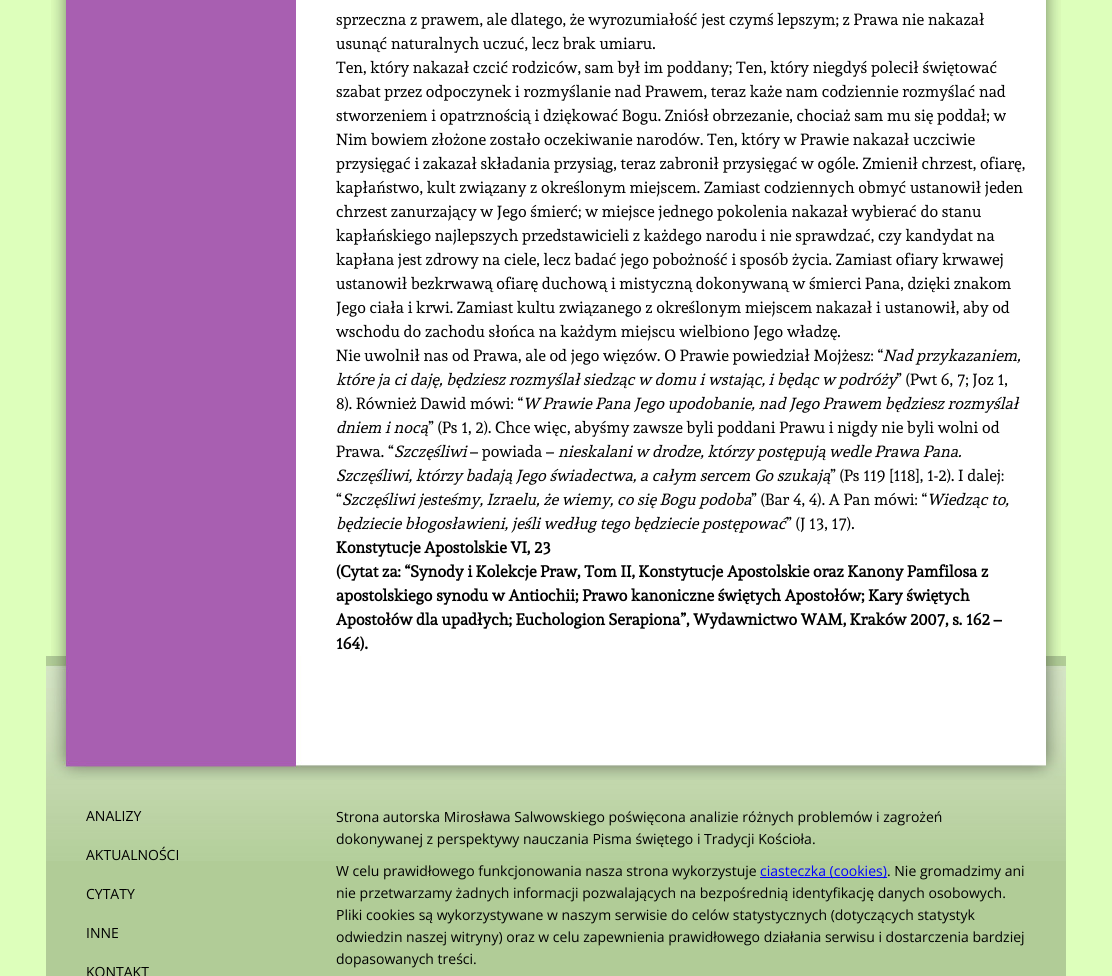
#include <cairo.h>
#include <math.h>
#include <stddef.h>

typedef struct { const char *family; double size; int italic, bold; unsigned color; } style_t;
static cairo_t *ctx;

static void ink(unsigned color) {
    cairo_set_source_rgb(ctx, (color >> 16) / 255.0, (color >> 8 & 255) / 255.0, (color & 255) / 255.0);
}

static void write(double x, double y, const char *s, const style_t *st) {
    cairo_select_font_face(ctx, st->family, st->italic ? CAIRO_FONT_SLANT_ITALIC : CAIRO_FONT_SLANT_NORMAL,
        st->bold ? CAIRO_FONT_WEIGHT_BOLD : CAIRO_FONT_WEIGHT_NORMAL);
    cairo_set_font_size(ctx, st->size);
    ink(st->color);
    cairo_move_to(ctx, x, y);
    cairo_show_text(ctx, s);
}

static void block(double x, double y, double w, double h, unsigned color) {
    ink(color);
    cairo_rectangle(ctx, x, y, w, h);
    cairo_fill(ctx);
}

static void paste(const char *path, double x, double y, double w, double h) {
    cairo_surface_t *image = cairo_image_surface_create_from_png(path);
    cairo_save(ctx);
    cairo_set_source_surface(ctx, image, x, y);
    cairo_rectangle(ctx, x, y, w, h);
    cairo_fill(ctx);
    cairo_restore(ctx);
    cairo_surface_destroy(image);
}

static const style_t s1 = {"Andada", 16, 0, 0, 0x000000};
static const style_t s2 = {"Andada", 16, 1, 0, 0x000000};
static const style_t s3 = {"Andada", 16, 0, 1, 0x000000};
static const style_t s4 = {"Open Sans", 14, 0, 0, 0x000000};
static const style_t s5 = {"Open Sans", 14, 0, 0, 0x0000ff};

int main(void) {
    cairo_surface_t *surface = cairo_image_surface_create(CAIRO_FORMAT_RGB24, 1112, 976);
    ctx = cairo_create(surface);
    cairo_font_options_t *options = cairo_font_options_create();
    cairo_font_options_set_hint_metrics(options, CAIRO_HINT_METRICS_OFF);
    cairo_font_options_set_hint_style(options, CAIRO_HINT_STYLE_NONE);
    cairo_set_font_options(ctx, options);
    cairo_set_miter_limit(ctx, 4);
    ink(0xddffbb);
    cairo_paint(ctx);
    paste("pic1.png", 51, 0, 1010, 656);
    write(336, 25, "sprzeczna z prawem, ale dlatego, że wyrozumiałość jest czymś lepszym; z Prawa nie nakazał", &s1);
    write(336, 49, "usunąć naturalnych uczuć, lecz brak umiaru.", &s1);
    write(336, 73, "Ten, który nakazał czcić rodziców, sam był im poddany; Ten, który niegdyś polecił świętować", &s1);
    write(336, 97, "szabat przez odpoczynek i rozmyślanie nad Prawem, teraz każe nam codziennie rozmyślać nad", &s1);
    write(336, 121, "stworzeniem i opatrznością i dziękować Bogu. Zniósł obrzezanie, chociaż sam mu się poddał; w", &s1);
    write(336, 145, "Nim bowiem złożone zostało oczekiwanie narodów. Ten, który w Prawie nakazał uczciwie", &s1);
    write(336, 169, "przysięgać i zakazał składania przysiąg, teraz zabronił przysięgać w ogóle. Zmienił chrzest, ofiarę,", &s1);
    write(336, 193, "kapłaństwo, kult związany z określonym miejscem. Zamiast codziennych obmyć ustanowił jeden", &s1);
    write(336, 217, "chrzest zanurzający w Jego śmierć; w miejsce jednego pokolenia nakazał wybierać do stanu", &s1);
    write(336, 241, "kapłańskiego najlepszych przedstawicieli z każdego narodu i nie sprawdzać, czy kandydat na", &s1);
    write(336, 265, "kapłana jest zdrowy na ciele, lecz badać jego pobożność i sposób życia. Zamiast ofiary krwawej", &s1);
    write(336, 289, "ustanowił bezkrwawą ofiarę duchową i mistyczną dokonywaną w śmierci Pana, dzięki znakom", &s1);
    write(336, 313, "Jego ciała i krwi. Zamiast kultu związanego z określonym miejscem nakazał i ustanowił, aby od", &s1);
    write(336, 337, "wschodu do zachodu słońca na każdym miejscu wielbiono Jego władzę.", &s1);
    write(336, 361, "Nie uwolnił nas od Prawa, ale od jego więzów. O Prawie powiedział Mojżesz: “", &s1);
    write(883, 361, "Nad przykazaniem,", &s2);
    write(336, 385, "które ja ci daję, będziesz rozmyślał siedząc w domu i wstając, i będąc w podróży", &s2);
    write(896, 385, "” (Pwt 6, 7; Joz 1,", &s1);
    write(336, 409, "8). Również Dawid mówi: “", &s1);
    write(523, 409, "W Prawie Pana Jego upodobanie, nad Jego Prawem będziesz rozmyślał", &s2);
    write(336, 433, "dniem i nocą", &s2);
    write(428, 433, "” (Ps 1, 2). Chce więc, abyśmy zawsze byli poddani Prawu i nigdy nie byli wolni od", &s1);
    write(336, 457, "Prawa. “", &s1);
    write(394, 457, "Szczęśliwi", &s2);
    write(470, 457, "– powiada –", &s1);
    write(558, 457, "nieskalani w drodze, którzy postępują wedle Prawa Pana.", &s2);
    write(336, 481, "Szczęśliwi, którzy badają Jego świadectwa, a całym sercem Go szukają", &s2);
    write(830, 481, "” (Ps 119 [118], 1-2). I dalej:", &s1);
    write(336, 505, "“", &s1);
    write(342, 505, "Szczęśliwi jesteśmy, Izraelu, że wiemy, co się Bogu podoba", &s2);
    write(751, 505, "” (Bar 4, 4). A Pan mówi: “", &s1);
    write(927, 505, "Wiedząc to,", &s2);
    write(336, 529, "będziecie błogosławieni, jeśli według tego będziecie postępować", &s2);
    write(786, 529, "” (J 13, 17).", &s1);
    write(336, 553, "Konstytucje Apostolskie VI, 23", &s3);
    write(336, 577, "(Cytat za: “Synody i Kolekcje Praw, Tom II, Konstytucje Apostolskie oraz Kanony Pamfilosa z", &s3);
    write(336, 601, "apostolskiego synodu w Antiochii; Prawo kanoniczne świętych Apostołów; Kary świętych", &s3);
    write(336, 625, "Apostołów dla upadłych; Euchologion Serapiona”, Wydawnictwo WAM, Kraków 2007, s. 162 –", &s3);
    write(336, 649, "164).", &s3);
    block(46, 656, 1020, 320, 0xb1cc97);
    paste("pic2.png", 46, 666, 1020, 195);
    paste("pic3.png", 46, 656, 1018, 124);
    write(86, 821, "ANALIZY", &s4);
    write(86, 860, "AKTUALNOŚCI", &s4);
    write(86, 899, "CYTATY", &s4);
    write(86, 938, "INNE", &s4);
    write(86, 977, "KONTAKT", &s4);
    write(336, 822, "Strona autorska Mirosława Salwowskiego poświęcona analizie różnych problemów i zagrożeń", &s4);
    write(336, 844, "dokonywanej z perspektywy nauczania Pisma świętego i Tradycji Kościoła.", &s4);
    write(336, 876, "W celu prawidłowego funkcjonowania nasza strona wykorzystuje", &s4);
    block(760, 877, 127, 1, 0x0000ff);
    write(760, 876, "ciasteczka (cookies)", &s5);
    write(887, 876, ". Nie gromadzimy ani", &s4);
    write(336, 898, "nie przetwarzamy żadnych informacji pozwalających na bezpośrednią identyfikację danych osobowych.", &s4);
    write(336, 920, "Pliki cookies są wykorzystywane w naszym serwisie do celów statystycznych (dotyczących statystyk", &s4);
    write(336, 942, "odwiedzin naszej witryny) oraz w celu zapewnienia prawidłowego działania serwisu i dostarczenia bardziej", &s4);
    write(336, 964, "dopasowanych treści.", &s4);
    cairo_surface_write_to_png(surface, "screenshot.png");
    cairo_font_options_destroy(options);
    cairo_destroy(ctx);
    cairo_surface_destroy(surface);
    return 0;
}
